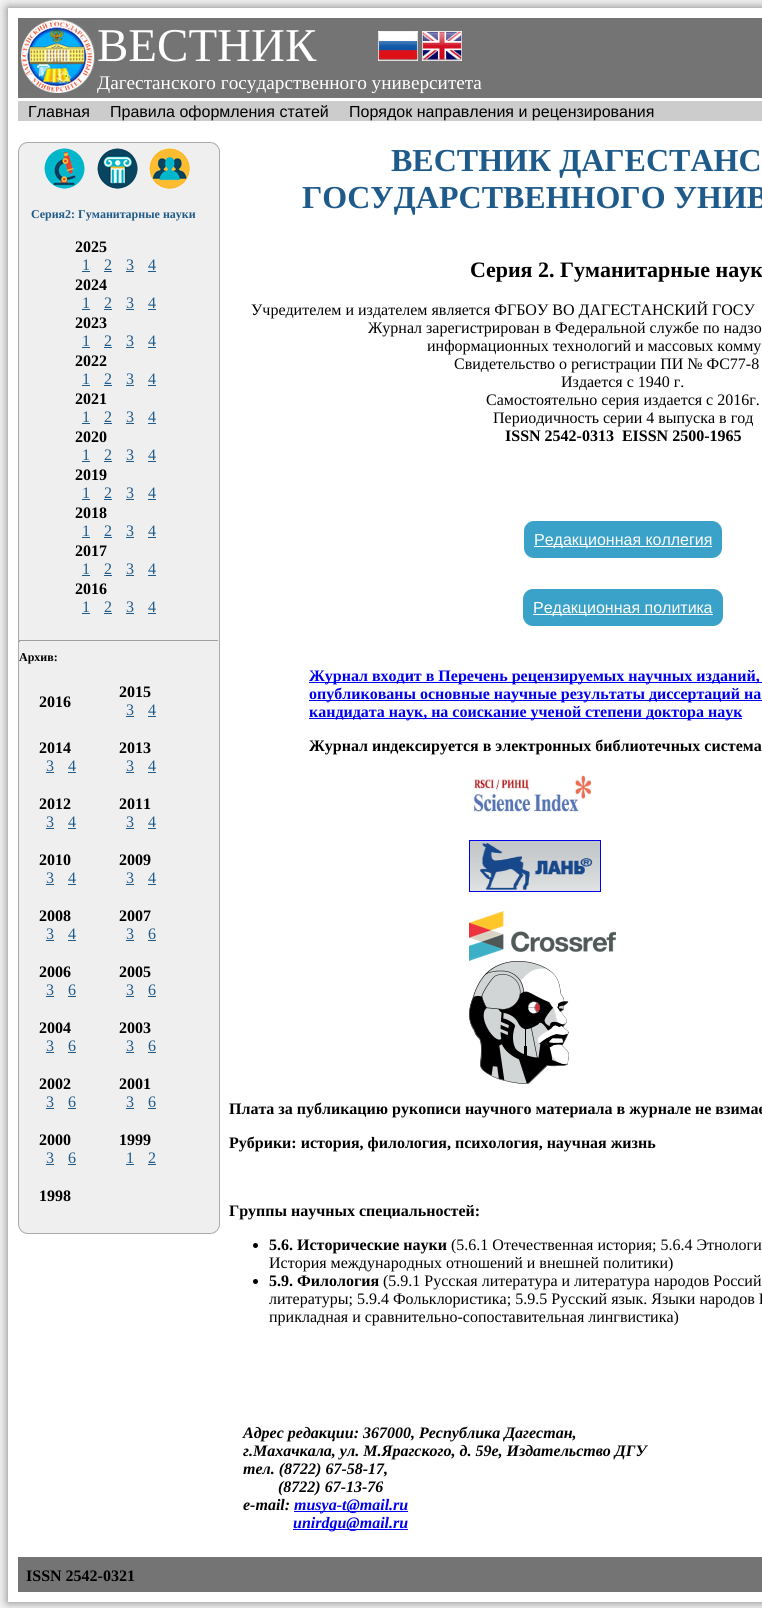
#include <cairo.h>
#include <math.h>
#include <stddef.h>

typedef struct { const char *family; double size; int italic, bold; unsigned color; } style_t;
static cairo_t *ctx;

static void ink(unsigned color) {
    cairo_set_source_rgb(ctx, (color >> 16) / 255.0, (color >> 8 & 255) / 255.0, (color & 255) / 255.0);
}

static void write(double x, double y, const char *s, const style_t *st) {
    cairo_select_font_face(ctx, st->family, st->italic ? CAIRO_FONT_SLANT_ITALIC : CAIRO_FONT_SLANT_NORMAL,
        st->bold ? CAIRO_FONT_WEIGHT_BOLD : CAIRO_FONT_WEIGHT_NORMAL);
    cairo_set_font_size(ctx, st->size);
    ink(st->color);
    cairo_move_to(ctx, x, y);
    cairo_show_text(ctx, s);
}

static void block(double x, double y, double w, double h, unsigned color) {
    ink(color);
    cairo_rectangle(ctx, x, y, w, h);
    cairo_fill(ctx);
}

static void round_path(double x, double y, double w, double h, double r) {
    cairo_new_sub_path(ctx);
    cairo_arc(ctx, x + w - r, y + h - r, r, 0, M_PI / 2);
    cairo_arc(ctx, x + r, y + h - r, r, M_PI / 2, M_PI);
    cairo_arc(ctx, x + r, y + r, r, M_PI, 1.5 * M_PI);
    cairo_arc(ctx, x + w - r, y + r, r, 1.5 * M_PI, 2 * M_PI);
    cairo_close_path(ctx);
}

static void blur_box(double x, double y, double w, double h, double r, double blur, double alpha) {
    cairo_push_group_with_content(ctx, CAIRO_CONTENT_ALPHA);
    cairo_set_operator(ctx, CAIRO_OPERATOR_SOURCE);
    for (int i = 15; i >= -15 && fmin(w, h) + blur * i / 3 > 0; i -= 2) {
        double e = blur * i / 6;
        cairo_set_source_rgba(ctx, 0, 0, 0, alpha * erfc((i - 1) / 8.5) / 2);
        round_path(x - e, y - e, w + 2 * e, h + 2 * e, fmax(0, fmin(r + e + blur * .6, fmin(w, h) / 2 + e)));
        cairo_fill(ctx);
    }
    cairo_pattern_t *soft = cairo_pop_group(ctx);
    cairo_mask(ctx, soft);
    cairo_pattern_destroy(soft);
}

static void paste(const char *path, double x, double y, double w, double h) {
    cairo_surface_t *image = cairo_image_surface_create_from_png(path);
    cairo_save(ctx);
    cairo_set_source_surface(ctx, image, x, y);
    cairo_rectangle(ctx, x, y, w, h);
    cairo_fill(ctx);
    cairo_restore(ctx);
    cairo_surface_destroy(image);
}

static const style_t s1 = {"Liberation Serif", 47, 0, 0, 0xffffff};
static const style_t s2 = {"Liberation Serif", 19.25, 0, 0, 0xffffff};
static const style_t s3 = {"Liberation Sans", 16, 0, 0, 0x000000};
static const style_t s4 = {"Liberation Serif", 12, 0, 1, 0x1f5b8a};
static const style_t s5 = {"Liberation Serif", 16, 0, 1, 0x000000};
static const style_t s6 = {"Liberation Serif", 16, 0, 0, 0x1f5b8a};
static const style_t s7 = {"Liberation Serif", 12, 0, 1, 0x000000};
static const style_t s8 = {"Liberation Serif", 32, 0, 1, 0x1f5b8a};
static const style_t s9 = {"Liberation Serif", 22, 0, 1, 0x000000};
static const style_t s10 = {"Liberation Serif", 16, 0, 0, 0x000000};
static const style_t s11 = {"Liberation Sans", 16, 0, 0, 0xffffff};
static const style_t s12 = {"Liberation Serif", 16, 0, 1, 0x0000ee};
static const style_t s13 = {"Liberation Serif", 16, 1, 1, 0x000000};
static const style_t s14 = {"Liberation Serif", 16, 1, 1, 0x0000ee};

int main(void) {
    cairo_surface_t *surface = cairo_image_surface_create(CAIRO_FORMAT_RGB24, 762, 1608);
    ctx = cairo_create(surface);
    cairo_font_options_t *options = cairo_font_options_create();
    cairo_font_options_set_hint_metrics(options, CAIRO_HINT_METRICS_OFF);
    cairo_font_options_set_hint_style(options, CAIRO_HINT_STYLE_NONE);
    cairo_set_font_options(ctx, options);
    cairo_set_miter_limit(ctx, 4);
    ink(0xf2f2f2);
    cairo_paint(ctx);
    ink(0x000000);
    blur_box(8, 8, 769, 1594, 0, 5, 0.5);
    block(8, 8, 754, 1594, 0xffffff);
    block(18, 18, 744, 80, 0x747474);
    paste("pic1.png", 18, 18, 79, 75);
    write(97, 61, "ВЕСТНИК", &s1);
    paste("pic2.png", 378, 31, 40, 30);
    paste("pic3.png", 422, 31, 40, 30);
    write(97, 89, "Дагестанского государственного университета", &s2);
    block(18, 101, 744, 20, 0xcccccc);
    write(28, 117, "Главная", &s3);
    write(110, 117, "Правила оформления статей", &s3);
    write(349, 117, "Порядок направления и рецензирования", &s3);
    ink(0xefefef);
    round_path(18.5, 142.5, 201, 1091, 9.5);
    cairo_fill_preserve(ctx);
    ink(0xababab);
    cairo_set_line_width(ctx, 1);
    cairo_stroke(ctx);
    paste("pic4.png", 44, 148, 41, 41);
    paste("pic5.png", 97, 148, 41, 41);
    paste("pic6.png", 149, 148, 41, 41);
    write(31, 218, "Серия2: Гуманитарные науки", &s4);
    write(75, 252, "2025", &s5);
    write(82, 270, "1", &s6);
    block(82, 271, 8, 1, 0x1f5b8a);
    write(104, 270, "2", &s6);
    block(104, 271, 8, 1, 0x1f5b8a);
    write(126, 270, "3", &s6);
    block(126, 271, 8, 1, 0x1f5b8a);
    write(148, 270, "4", &s6);
    block(148, 271, 8, 1, 0x1f5b8a);
    write(75, 290, "2024", &s5);
    write(82, 308, "1", &s6);
    block(82, 309, 8, 1, 0x1f5b8a);
    write(104, 308, "2", &s6);
    block(104, 309, 8, 1, 0x1f5b8a);
    write(126, 308, "3", &s6);
    block(126, 309, 8, 1, 0x1f5b8a);
    write(148, 308, "4", &s6);
    block(148, 309, 8, 1, 0x1f5b8a);
    write(75, 328, "2023", &s5);
    write(82, 346, "1", &s6);
    block(82, 347, 8, 1, 0x1f5b8a);
    write(104, 346, "2", &s6);
    block(104, 347, 8, 1, 0x1f5b8a);
    write(126, 346, "3", &s6);
    block(126, 347, 8, 1, 0x1f5b8a);
    write(148, 346, "4", &s6);
    block(148, 347, 8, 1, 0x1f5b8a);
    write(75, 366, "2022", &s5);
    write(82, 384, "1", &s6);
    block(82, 385, 8, 1, 0x1f5b8a);
    write(104, 384, "2", &s6);
    block(104, 385, 8, 1, 0x1f5b8a);
    write(126, 384, "3", &s6);
    block(126, 385, 8, 1, 0x1f5b8a);
    write(148, 384, "4", &s6);
    block(148, 385, 8, 1, 0x1f5b8a);
    write(75, 404, "2021", &s5);
    write(82, 422, "1", &s6);
    block(82, 423, 8, 1, 0x1f5b8a);
    write(104, 422, "2", &s6);
    block(104, 423, 8, 1, 0x1f5b8a);
    write(126, 422, "3", &s6);
    block(126, 423, 8, 1, 0x1f5b8a);
    write(148, 422, "4", &s6);
    block(148, 423, 8, 1, 0x1f5b8a);
    write(75, 442, "2020", &s5);
    write(82, 460, "1", &s6);
    block(82, 461, 8, 1, 0x1f5b8a);
    write(104, 460, "2", &s6);
    block(104, 461, 8, 1, 0x1f5b8a);
    write(126, 460, "3", &s6);
    block(126, 461, 8, 1, 0x1f5b8a);
    write(148, 460, "4", &s6);
    block(148, 461, 8, 1, 0x1f5b8a);
    write(75, 480, "2019", &s5);
    write(82, 498, "1", &s6);
    block(82, 499, 8, 1, 0x1f5b8a);
    write(104, 498, "2", &s6);
    block(104, 499, 8, 1, 0x1f5b8a);
    write(126, 498, "3", &s6);
    block(126, 499, 8, 1, 0x1f5b8a);
    write(148, 498, "4", &s6);
    block(148, 499, 8, 1, 0x1f5b8a);
    write(75, 518, "2018", &s5);
    write(82, 536, "1", &s6);
    block(82, 537, 8, 1, 0x1f5b8a);
    write(104, 536, "2", &s6);
    block(104, 537, 8, 1, 0x1f5b8a);
    write(126, 536, "3", &s6);
    block(126, 537, 8, 1, 0x1f5b8a);
    write(148, 536, "4", &s6);
    block(148, 537, 8, 1, 0x1f5b8a);
    write(75, 556, "2017", &s5);
    write(82, 574, "1", &s6);
    block(82, 575, 8, 1, 0x1f5b8a);
    write(104, 574, "2", &s6);
    block(104, 575, 8, 1, 0x1f5b8a);
    write(126, 574, "3", &s6);
    block(126, 575, 8, 1, 0x1f5b8a);
    write(148, 574, "4", &s6);
    block(148, 575, 8, 1, 0x1f5b8a);
    write(75, 594, "2016", &s5);
    write(82, 612, "1", &s6);
    block(82, 613, 8, 1, 0x1f5b8a);
    write(104, 612, "2", &s6);
    block(104, 613, 8, 1, 0x1f5b8a);
    write(126, 612, "3", &s6);
    block(126, 613, 8, 1, 0x1f5b8a);
    write(148, 612, "4", &s6);
    block(148, 613, 8, 1, 0x1f5b8a);
    block(19, 640, 200, 1, 0x9f9f9f);
    block(218, 640, 1, 2, 0xeeeeee);
    block(19, 640, 1, 2, 0x9f9f9f);
    write(19, 661, "Архив:", &s7);
    write(39, 707, "2016", &s5);
    write(119, 697, "2015", &s5);
    write(126, 715, "3", &s6);
    block(126, 716, 8, 1, 0x1f5b8a);
    write(148, 715, "4", &s6);
    block(148, 716, 8, 1, 0x1f5b8a);
    write(39, 753, "2014", &s5);
    write(46, 771, "3", &s6);
    block(46, 772, 8, 1, 0x1f5b8a);
    write(68, 771, "4", &s6);
    block(68, 772, 8, 1, 0x1f5b8a);
    write(119, 753, "2013", &s5);
    write(126, 771, "3", &s6);
    block(126, 772, 8, 1, 0x1f5b8a);
    write(148, 771, "4", &s6);
    block(148, 772, 8, 1, 0x1f5b8a);
    write(39, 809, "2012", &s5);
    write(46, 827, "3", &s6);
    block(46, 828, 8, 1, 0x1f5b8a);
    write(68, 827, "4", &s6);
    block(68, 828, 8, 1, 0x1f5b8a);
    write(119, 809, "2011", &s5);
    write(126, 827, "3", &s6);
    block(126, 828, 8, 1, 0x1f5b8a);
    write(148, 827, "4", &s6);
    block(148, 828, 8, 1, 0x1f5b8a);
    write(39, 865, "2010", &s5);
    write(46, 883, "3", &s6);
    block(46, 884, 8, 1, 0x1f5b8a);
    write(68, 883, "4", &s6);
    block(68, 884, 8, 1, 0x1f5b8a);
    write(119, 865, "2009", &s5);
    write(126, 883, "3", &s6);
    block(126, 884, 8, 1, 0x1f5b8a);
    write(148, 883, "4", &s6);
    block(148, 884, 8, 1, 0x1f5b8a);
    write(39, 921, "2008", &s5);
    write(46, 939, "3", &s6);
    block(46, 940, 8, 1, 0x1f5b8a);
    write(68, 939, "4", &s6);
    block(68, 940, 8, 1, 0x1f5b8a);
    write(119, 921, "2007", &s5);
    write(126, 939, "3", &s6);
    block(126, 940, 8, 1, 0x1f5b8a);
    write(148, 939, "6", &s6);
    block(148, 940, 8, 1, 0x1f5b8a);
    write(39, 977, "2006", &s5);
    write(46, 995, "3", &s6);
    block(46, 996, 8, 1, 0x1f5b8a);
    write(68, 995, "6", &s6);
    block(68, 996, 8, 1, 0x1f5b8a);
    write(119, 977, "2005", &s5);
    write(126, 995, "3", &s6);
    block(126, 996, 8, 1, 0x1f5b8a);
    write(148, 995, "6", &s6);
    block(148, 996, 8, 1, 0x1f5b8a);
    write(39, 1033, "2004", &s5);
    write(46, 1051, "3", &s6);
    block(46, 1052, 8, 1, 0x1f5b8a);
    write(68, 1051, "6", &s6);
    block(68, 1052, 8, 1, 0x1f5b8a);
    write(119, 1033, "2003", &s5);
    write(126, 1051, "3", &s6);
    block(126, 1052, 8, 1, 0x1f5b8a);
    write(148, 1051, "6", &s6);
    block(148, 1052, 8, 1, 0x1f5b8a);
    write(39, 1089, "2002", &s5);
    write(46, 1107, "3", &s6);
    block(46, 1108, 8, 1, 0x1f5b8a);
    write(68, 1107, "6", &s6);
    block(68, 1108, 8, 1, 0x1f5b8a);
    write(119, 1089, "2001", &s5);
    write(126, 1107, "3", &s6);
    block(126, 1108, 8, 1, 0x1f5b8a);
    write(148, 1107, "6", &s6);
    block(148, 1108, 8, 1, 0x1f5b8a);
    write(39, 1145, "2000", &s5);
    write(46, 1163, "3", &s6);
    block(46, 1164, 8, 1, 0x1f5b8a);
    write(68, 1163, "6", &s6);
    block(68, 1164, 8, 1, 0x1f5b8a);
    write(119, 1145, "1999", &s5);
    write(126, 1163, "1", &s6);
    block(126, 1164, 8, 1, 0x1f5b8a);
    write(148, 1163, "2", &s6);
    block(148, 1164, 8, 1, 0x1f5b8a);
    write(39, 1201, "1998", &s5);
    write(391, 171, "ВЕСТНИК ДАГЕСТАНС", &s8);
    write(302, 208, "ГОСУДАРСТВЕННОГО УНИВ", &s8);
    write(470, 277, "Серия 2. Гуманитарные наук", &s9);
    write(251, 315, "Учредителем и издателем является ФГБОУ ВО ДАГЕСТАНСКИЙ ГОСУ", &s10);
    write(368, 333, "Журнал зарегистрирован в Федеральной службе по надзо", &s10);
    write(427, 351, "информационных технологий и массовых комму", &s10);
    write(454, 369, "Свидетельство о регистрации ПИ № ФС77-8", &s10);
    write(561, 387, "Издается с 1940 г.", &s10);
    write(486, 405, "Самостоятельно серия издается с 2016г.", &s10);
    write(493, 423, "Периодичность серии 4 выпуска в год", &s10);
    write(505, 441, "ISSN 2542-0313  EISSN 2500-1965", &s5);
    ink(0x3aa2c9);
    round_path(524, 521, 198, 37, 10);
    cairo_fill(ctx);
    block(534, 546, 178, 1, 0xffffff);
    write(534, 545, "Редакционная коллегия", &s11);
    ink(0x3aa2c9);
    round_path(523, 589, 200, 37, 10);
    cairo_fill(ctx);
    block(533, 614, 180, 1, 0xffffff);
    write(533, 613, "Редакционная политика", &s11);
    block(309, 682, 453, 1, 0x0000ee);
    write(309, 681, "Журнал входит в Перечень рецензируемых научных изданий,", &s12);
    block(309, 700, 453, 1, 0x0000ee);
    write(309, 699, "опубликованы основные научные результаты диссертаций на", &s12);
    block(309, 718, 433, 1, 0x0000ee);
    write(309, 717, "кандидата наук, на соискание ученой степени доктора наук", &s12);
    write(309, 751, "Журнал индексируется в электронных библиотечных система", &s5);
    paste("pic7.png", 473, 775, 119, 37);
    cairo_rectangle(ctx, 469.5, 840.5, 131, 51);
    ink(0x0000ee);
    cairo_stroke(ctx);
    paste("pic8.png", 470, 841, 130, 50);
    paste("pic9.png", 469, 911, 147, 50);
    paste("pic10.png", 469, 961, 100, 123);
    write(229, 1114, "Плата за публикацию рукописи научного материала в журнале не взимае", &s5);
    write(229, 1148, "Рубрики: история, филология, психология, научная жизнь", &s5);
    write(229, 1216, "Группы научных специальностей:", &s5);
    cairo_new_path(ctx);
    cairo_arc(ctx, 255.5, 1245.5, 2.5, 0, 2 * M_PI);
    cairo_fill(ctx);
    write(269, 1250, "5.6. Исторические науки", &s5);
    write(451, 1250, "(5.6.1 Отечественная история; 5.6.4 Этнологи", &s10);
    write(269, 1268, "История международных отношений и внешней политики)", &s10);
    cairo_new_path(ctx);
    cairo_arc(ctx, 255.5, 1281.5, 2.5, 0, 2 * M_PI);
    cairo_fill(ctx);
    write(269, 1286, "5.9. Филология", &s5);
    write(383, 1286, "(5.9.1 Русская литература и литература народов Россий", &s10);
    write(269, 1304, "литературы; 5.9.4 Фольклористика; 5.9.5 Русский язык. Языки народов Р", &s10);
    write(269, 1322, "прикладная и сравнительно-сопоставительная лингвистика)", &s10);
    write(243, 1438, "Адрес редакции: 367000, Республика Дагестан,", &s13);
    write(243, 1456, "г.Махачкала, ул. М.Ярагского, д. 59е, Издательство ДГУ", &s13);
    write(243, 1474, "тел. (8722) 67-58-17,", &s13);
    write(278, 1492, "(8722) 67-13-76", &s13);
    write(243, 1510, "e-mail:", &s13);
    block(294, 1511, 114, 1, 0x0000ee);
    write(294, 1510, "musya-t@mail.ru", &s14);
    block(293, 1529, 115, 1, 0x0000ee);
    write(293, 1528, "unirdgu@mail.ru", &s14);
    block(18, 1557, 744, 35, 0x747474);
    write(26, 1581, "ISSN 2542-0321", &s5);
    cairo_surface_write_to_png(surface, "screenshot.png");
    cairo_font_options_destroy(options);
    cairo_destroy(ctx);
    cairo_surface_destroy(surface);
    return 0;
}
